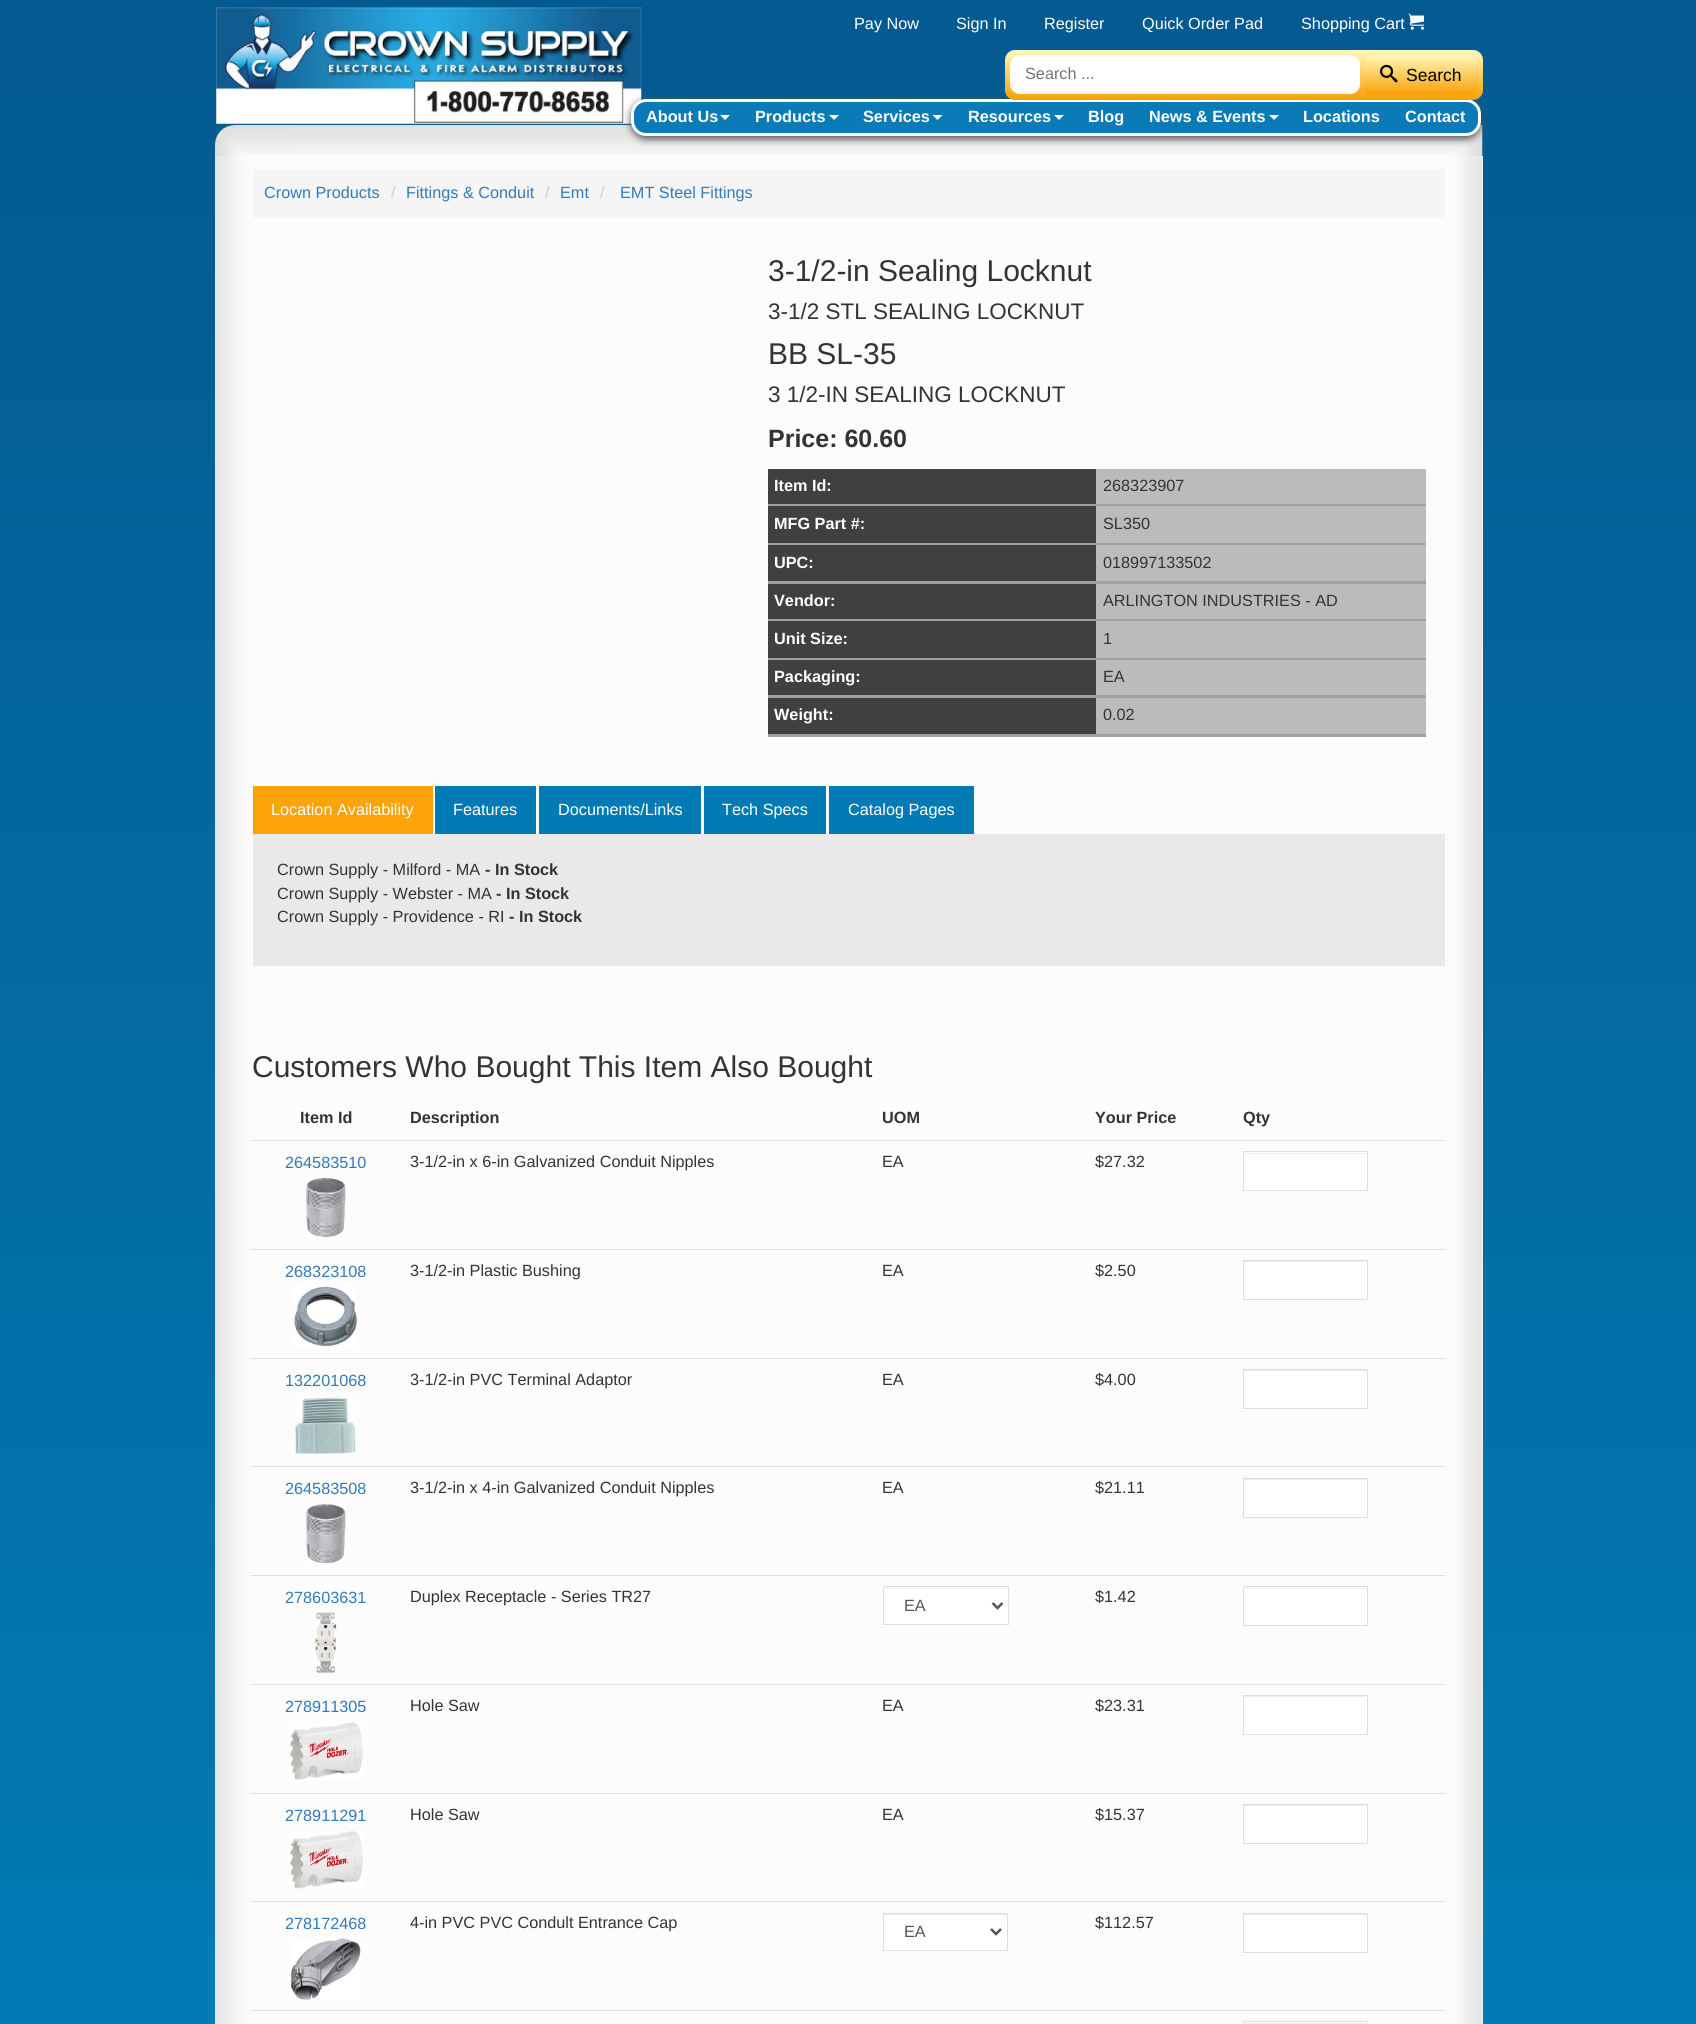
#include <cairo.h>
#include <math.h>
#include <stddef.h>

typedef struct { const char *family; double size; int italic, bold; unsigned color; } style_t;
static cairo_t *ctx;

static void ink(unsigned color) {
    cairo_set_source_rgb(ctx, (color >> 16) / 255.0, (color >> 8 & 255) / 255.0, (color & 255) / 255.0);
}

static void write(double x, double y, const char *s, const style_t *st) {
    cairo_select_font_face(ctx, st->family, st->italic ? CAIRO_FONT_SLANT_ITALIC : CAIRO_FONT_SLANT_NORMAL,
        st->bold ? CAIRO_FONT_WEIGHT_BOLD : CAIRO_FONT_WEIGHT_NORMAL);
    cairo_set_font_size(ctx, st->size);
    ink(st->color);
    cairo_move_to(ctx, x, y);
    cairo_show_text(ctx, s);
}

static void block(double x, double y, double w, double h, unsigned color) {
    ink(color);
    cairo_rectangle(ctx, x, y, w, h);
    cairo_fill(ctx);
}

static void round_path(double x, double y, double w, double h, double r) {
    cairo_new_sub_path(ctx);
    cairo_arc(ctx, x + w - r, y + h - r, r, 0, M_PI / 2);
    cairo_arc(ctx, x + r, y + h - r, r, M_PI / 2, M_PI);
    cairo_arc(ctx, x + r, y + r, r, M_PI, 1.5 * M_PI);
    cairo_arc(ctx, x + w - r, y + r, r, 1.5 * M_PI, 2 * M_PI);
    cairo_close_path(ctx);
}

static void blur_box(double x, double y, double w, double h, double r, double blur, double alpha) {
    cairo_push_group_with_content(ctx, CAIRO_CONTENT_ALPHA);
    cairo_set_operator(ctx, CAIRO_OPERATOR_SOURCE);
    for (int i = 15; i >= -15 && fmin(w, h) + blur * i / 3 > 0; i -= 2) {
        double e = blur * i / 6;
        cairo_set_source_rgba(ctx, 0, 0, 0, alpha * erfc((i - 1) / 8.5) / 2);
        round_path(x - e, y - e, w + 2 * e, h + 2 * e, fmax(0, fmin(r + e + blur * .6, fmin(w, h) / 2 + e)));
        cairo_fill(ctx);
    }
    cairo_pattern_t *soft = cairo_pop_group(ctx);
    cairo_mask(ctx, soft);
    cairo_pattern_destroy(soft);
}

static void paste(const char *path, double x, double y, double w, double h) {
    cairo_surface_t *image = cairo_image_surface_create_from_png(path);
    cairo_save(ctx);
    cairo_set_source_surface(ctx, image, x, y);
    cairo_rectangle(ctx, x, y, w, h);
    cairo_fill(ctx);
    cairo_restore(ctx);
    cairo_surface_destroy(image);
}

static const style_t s1 = {"Liberation Sans", 16.25, 0, 0, 0xffffff};
static const style_t s2 = {"Liberation Sans", 16.25, 0, 0, 0x757575};
static const style_t s3 = {"Liberation Sans", 17.5, 0, 0, 0x000000};
static const style_t s4 = {"Liberation Sans", 16.25, 0, 1, 0xffffff};
static const style_t s5 = {"Liberation Sans", 16.25, 0, 0, 0x337ab7};
static const style_t s6 = {"Liberation Sans", 16.25, 0, 0, 0xcccccc};
static const style_t s7 = {"Liberation Sans", 30, 0, 0, 0x333333};
static const style_t s8 = {"Liberation Sans", 22.5, 0, 0, 0x333333};
static const style_t s9 = {"Liberation Sans", 25, 0, 1, 0x333333};
static const style_t s10 = {"Liberation Sans", 16.25, 0, 0, 0x333333};
static const style_t s11 = {"Liberation Sans", 16.25, 0, 1, 0x333333};
static const style_t s12 = {"Liberation Sans", 16.25, 0, 0, 0x555555};

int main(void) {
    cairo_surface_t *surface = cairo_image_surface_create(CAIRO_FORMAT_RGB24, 1696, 2024);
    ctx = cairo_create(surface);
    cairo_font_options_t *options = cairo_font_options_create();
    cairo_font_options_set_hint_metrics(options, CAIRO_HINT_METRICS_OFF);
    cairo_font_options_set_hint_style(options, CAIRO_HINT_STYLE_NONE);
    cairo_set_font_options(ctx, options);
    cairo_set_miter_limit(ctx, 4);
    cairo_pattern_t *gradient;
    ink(0xffffff);
    cairo_paint(ctx);
    gradient = cairo_pattern_create_linear(848, 0, 848, 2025);
    cairo_pattern_add_color_stop_rgba(gradient, 0, 0.012, 0.353, 0.565, 1);
    cairo_pattern_add_color_stop_rgba(gradient, 1, 0.008, 0.482, 0.706, 1);
    cairo_set_source(ctx, gradient);
    cairo_pattern_destroy(gradient);
    cairo_rectangle(ctx, 0, 0, 1696, 2024);
    cairo_fill(ctx);
    write(854, 29, "Pay Now", &s1);
    write(956, 29, "Sign In", &s1);
    write(1044, 29, "Register", &s1);
    write(1142, 29, "Quick Order Pad", &s1);
    write(1301, 29, "Shopping Cart", &s1);
    paste("pic1.png", 1408, 13, 16, 17);
    paste("pic3.png", 216, 7, 426, 117);
    paste("pic4.png", 215, 125, 1268, 31);
    ink(0x4f4f4f);
    blur_box(631, 101, 850, 38, 15, 4, 1);
    ink(0x0a7bb7);
    round_path(632.5, 100.5, 847, 34, 13.5);
    cairo_fill_preserve(ctx);
    ink(0xffffff);
    cairo_set_line_width(ctx, 3);
    cairo_stroke(ctx);
    gradient = cairo_pattern_create_linear(1244, 50, 1244, 100);
    cairo_pattern_add_color_stop_rgba(gradient, 0, 1, 0.973, 0.722, 1);
    cairo_pattern_add_color_stop_rgba(gradient, 1, 0.976, 0.624, 0.027, 1);
    cairo_set_source(ctx, gradient);
    cairo_pattern_destroy(gradient);
    round_path(1005, 50, 478, 50, 10);
    cairo_fill(ctx);
    ink(0xffffff);
    round_path(1010, 55, 350, 39, 10);
    cairo_fill(ctx);
    write(1025, 79, "Search ...", &s2);
    gradient = cairo_pattern_create_linear(1421, 55, 1421, 95);
    cairo_pattern_add_color_stop_rgba(gradient, 0, 1, 0.973, 0.722, 1);
    cairo_pattern_add_color_stop_rgba(gradient, 1, 0.976, 0.624, 0.027, 1);
    cairo_set_source(ctx, gradient);
    cairo_pattern_destroy(gradient);
    round_path(1365, 55, 113, 40, 5);
    cairo_fill(ctx);
    paste("pic2.png", 1380, 64, 18, 19);
    write(1406, 81, "Search", &s3);
    write(646, 122, "About Us", &s4);
    cairo_new_path(ctx);
    cairo_move_to(ctx, 720, 115);
    cairo_line_to(ctx, 730, 115);
    cairo_line_to(ctx, 725, 120);
    cairo_close_path(ctx);
    cairo_fill(ctx);
    write(755, 122, "Products", &s4);
    cairo_new_path(ctx);
    cairo_move_to(ctx, 829, 115);
    cairo_line_to(ctx, 839, 115);
    cairo_line_to(ctx, 834, 120);
    cairo_close_path(ctx);
    cairo_fill(ctx);
    write(863, 122, "Services", &s4);
    cairo_new_path(ctx);
    cairo_move_to(ctx, 932.5, 115);
    cairo_line_to(ctx, 942.5, 115);
    cairo_line_to(ctx, 937.5, 120);
    cairo_close_path(ctx);
    cairo_fill(ctx);
    write(968, 122, "Resources", &s4);
    cairo_new_path(ctx);
    cairo_move_to(ctx, 1054, 115);
    cairo_line_to(ctx, 1064, 115);
    cairo_line_to(ctx, 1059, 120);
    cairo_close_path(ctx);
    cairo_fill(ctx);
    write(1088, 122, "Blog", &s4);
    write(1149, 122, "News & Events", &s4);
    cairo_new_path(ctx);
    cairo_move_to(ctx, 1269, 115);
    cairo_line_to(ctx, 1279, 115);
    cairo_line_to(ctx, 1274, 120);
    cairo_close_path(ctx);
    cairo_fill(ctx);
    write(1303, 122, "Locations", &s4);
    write(1405, 122, "Contact", &s4);
    block(215, 156, 1268, 1868, 0xffffff);
    paste("pic5.png", 215, 156, 1268, 1868);
    block(253, 169, 1192, 49, 0xf5f5f5);
    write(264, 198, "Crown Products", &s5);
    write(391, 198, "/", &s6);
    write(406, 198, "Fittings & Conduit", &s5);
    write(545, 198, "/", &s6);
    write(560, 198, "Emt", &s5);
    write(600, 198, "/", &s6);
    write(620, 198, "EMT Steel Fittings", &s5);
    write(768, 281, "3-1/2-in Sealing Locknut", &s7);
    write(768, 319, "3-1/2 STL SEALING LOCKNUT", &s8);
    write(768, 364, "BB SL-35", &s7);
    write(768, 402, "3 1/2-IN SEALING LOCKNUT", &s8);
    write(768, 447, "Price: 60.60", &s9);
    block(768, 504, 658, 2, 0xa0a0a0);
    block(768, 469, 328, 35, 0x404040);
    write(774, 491, "Item Id:", &s4);
    block(1096, 469, 330, 35, 0xbbbbbb);
    write(1103, 491, "268323907", &s10);
    block(768, 543, 658, 2, 0xa0a0a0);
    block(768, 506, 328, 37, 0x404040);
    write(774, 529, "MFG Part #:", &s4);
    block(1096, 506, 330, 37, 0xbbbbbb);
    write(1103, 529, "SL350", &s10);
    block(768, 581, 658, 3, 0xa0a0a0);
    block(768, 545, 328, 36, 0x404040);
    write(774, 568, "UPC:", &s4);
    block(1096, 545, 330, 36, 0xbbbbbb);
    write(1103, 568, "018997133502", &s10);
    block(768, 619, 658, 2, 0xa0a0a0);
    block(768, 584, 328, 35, 0x404040);
    write(774, 606, "Vendor:", &s4);
    block(1096, 584, 330, 35, 0xbbbbbb);
    write(1103, 606, "ARLINGTON INDUSTRIES - AD", &s10);
    block(768, 658, 658, 2, 0xa0a0a0);
    block(768, 621, 328, 37, 0x404040);
    write(774, 644, "Unit Size:", &s4);
    block(1096, 621, 330, 37, 0xbbbbbb);
    write(1103, 644, "1", &s10);
    block(768, 695, 658, 3, 0xa0a0a0);
    block(768, 660, 328, 35, 0x404040);
    write(774, 682, "Packaging:", &s4);
    block(1096, 660, 330, 35, 0xbbbbbb);
    write(1103, 682, "EA", &s10);
    block(768, 734, 658, 3, 0xa0a0a0);
    block(768, 698, 328, 36, 0x404040);
    write(774, 720, "Weight:", &s4);
    block(1096, 698, 330, 36, 0xbbbbbb);
    write(1103, 720, "0.02", &s10);
    block(253, 786, 180, 48, 0xfda207);
    write(271, 815, "Location Availability", &s1);
    block(435, 786, 101, 48, 0x027bb4);
    write(453, 815, "Features", &s1);
    block(539, 786, 162, 48, 0x027bb4);
    write(558, 815, "Documents/Links", &s1);
    block(704, 786, 122, 48, 0x027bb4);
    write(722, 815, "Tech Specs", &s1);
    block(829, 786, 145, 48, 0x027bb4);
    write(848, 815, "Catalog Pages", &s1);
    block(253, 834, 1192, 132, 0xebe9e7);
    write(277, 875, "Crown Supply - Milford - MA", &s10);
    write(485, 875, "- In Stock", &s11);
    write(277, 899, "Crown Supply - Webster - MA", &s10);
    write(496, 899, "- In Stock", &s11);
    write(277, 922, "Crown Supply - Providence - RI", &s10);
    write(509, 922, "- In Stock", &s11);
    write(252, 1077, "Customers Who Bought This Item Also Bought", &s7);
    write(300, 1123, "Item Id", &s11);
    write(410, 1123, "Description", &s11);
    write(882, 1123, "UOM", &s11);
    write(1095, 1123, "Your Price", &s11);
    write(1243, 1123, "Qty", &s11);
    block(251, 1140, 1194, 1, 0xdddddd);
    block(1244, 1152, 123, 38, 0xffffff);
    block(1244, 1153, 122, 1, 0xececec);
    cairo_rectangle(ctx, 1243.5, 1151.5, 124, 39);
    ink(0xdddddd);
    cairo_set_line_width(ctx, 1);
    cairo_stroke(ctx);
    write(285, 1168, "264583510", &s5);
    paste("pic6.png", 306, 1177, 40, 60);
    write(410, 1167, "3-1/2-in x 6-in Galvanized Conduit Nipples", &s10);
    write(882, 1167, "EA", &s10);
    write(1095, 1167, "$27.32", &s10);
    block(251, 1249, 1194, 1, 0xdddddd);
    block(1244, 1261, 123, 38, 0xffffff);
    block(1244, 1261, 122, 1, 0xececec);
    cairo_rectangle(ctx, 1243.5, 1260.5, 124, 39);
    ink(0xdddddd);
    cairo_stroke(ctx);
    write(285, 1277, "268323108", &s5);
    paste("pic7.png", 294, 1286, 63, 61);
    write(410, 1276, "3-1/2-in Plastic Bushing", &s10);
    write(882, 1276, "EA", &s10);
    write(1095, 1276, "$2.50", &s10);
    block(251, 1358, 1194, 1, 0xdddddd);
    block(1244, 1370, 123, 38, 0xffffff);
    block(1244, 1370, 122, 1, 0xececec);
    cairo_rectangle(ctx, 1243.5, 1369.5, 124, 39);
    ink(0xdddddd);
    cairo_stroke(ctx);
    write(285, 1386, "132201068", &s5);
    paste("pic8.png", 295, 1397, 61, 57);
    write(410, 1385, "3-1/2-in PVC Terminal Adaptor", &s10);
    write(882, 1385, "EA", &s10);
    write(1095, 1385, "$4.00", &s10);
    block(251, 1466, 1194, 1, 0xdddddd);
    block(1244, 1479, 123, 38, 0xffffff);
    block(1244, 1479, 122, 1, 0xececec);
    cairo_rectangle(ctx, 1243.5, 1478.5, 124, 39);
    ink(0xdddddd);
    cairo_stroke(ctx);
    write(285, 1494, "264583508", &s5);
    paste("pic9.png", 306, 1504, 40, 59);
    write(410, 1493, "3-1/2-in x 4-in Galvanized Conduit Nipples", &s10);
    write(882, 1493, "EA", &s10);
    write(1095, 1493, "$21.11", &s10);
    block(251, 1575, 1194, 1, 0xdddddd);
    block(1244, 1587, 123, 38, 0xffffff);
    block(1244, 1588, 122, 1, 0xececec);
    cairo_rectangle(ctx, 1243.5, 1586.5, 124, 39);
    ink(0xdddddd);
    cairo_stroke(ctx);
    write(285, 1603, "278603631", &s5);
    paste("pic10.png", 314, 1612, 23, 61);
    write(410, 1602, "Duplex Receptacle - Series TR27", &s10);
    block(884, 1587, 124, 37, 0xffffff);
    block(884, 1588, 124, 1, 0xececec);
    cairo_rectangle(ctx, 883.5, 1586.5, 125, 38);
    ink(0xdddddd);
    cairo_stroke(ctx);
    cairo_new_path(ctx);
    cairo_move_to(ctx, 992.5, 1603);
    cairo_line_to(ctx, 997.5, 1608);
    cairo_line_to(ctx, 1002.5, 1603);
    ink(0x555555);
    cairo_set_line_width(ctx, 2.5);
    cairo_stroke(ctx);
    write(904, 1611, "EA", &s12);
    write(1095, 1602, "$1.42", &s10);
    block(251, 1684, 1194, 1, 0xdddddd);
    block(1244, 1696, 123, 38, 0xffffff);
    block(1244, 1696, 122, 1, 0xececec);
    cairo_rectangle(ctx, 1243.5, 1695.5, 124, 39);
    ink(0xdddddd);
    cairo_set_line_width(ctx, 1);
    cairo_stroke(ctx);
    write(285, 1712, "278911305", &s5);
    paste("pic11.png", 289, 1722, 74, 58);
    write(410, 1711, "Hole Saw", &s10);
    write(882, 1711, "EA", &s10);
    write(1095, 1711, "$23.31", &s10);
    block(251, 1793, 1194, 1, 0xdddddd);
    block(1244, 1805, 123, 38, 0xffffff);
    block(1244, 1805, 122, 1, 0xececec);
    cairo_rectangle(ctx, 1243.5, 1804.5, 124, 39);
    ink(0xdddddd);
    cairo_stroke(ctx);
    write(285, 1821, "278911291", &s5);
    paste("pic12.png", 289, 1831, 74, 58);
    write(410, 1820, "Hole Saw", &s10);
    write(882, 1820, "EA", &s10);
    write(1095, 1820, "$15.37", &s10);
    block(251, 1901, 1194, 1, 0xdddddd);
    block(1244, 1914, 123, 38, 0xffffff);
    block(1244, 1914, 122, 1, 0xececec);
    cairo_rectangle(ctx, 1243.5, 1913.5, 124, 39);
    ink(0xdddddd);
    cairo_stroke(ctx);
    write(285, 1929, "278172468", &s5);
    paste("pic13.png", 290, 1938, 71, 62);
    write(410, 1928, "4-in PVC PVC Condult Entrance Cap", &s10);
    block(884, 1914, 123, 36, 0xffffff);
    block(884, 1914, 122, 1, 0xececec);
    cairo_rectangle(ctx, 883.5, 1913.5, 124, 37);
    ink(0xdddddd);
    cairo_stroke(ctx);
    cairo_new_path(ctx);
    cairo_move_to(ctx, 991, 1929);
    cairo_line_to(ctx, 996, 1934);
    cairo_line_to(ctx, 1001, 1929);
    ink(0x555555);
    cairo_set_line_width(ctx, 2.5);
    cairo_stroke(ctx);
    write(904, 1937, "EA", &s12);
    write(1095, 1928, "$112.57", &s10);
    block(251, 2010, 1194, 1, 0xdddddd);
    block(1243, 2022, 125, 2, 0xffffff);
    block(1244, 2023, 122, 1, 0xececec);
    cairo_rectangle(ctx, 1243.5, 2021.5, 124, 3);
    ink(0xdddddd);
    cairo_set_line_width(ctx, 1);
    cairo_stroke(ctx);
    cairo_surface_write_to_png(surface, "screenshot.png");
    cairo_font_options_destroy(options);
    cairo_destroy(ctx);
    cairo_surface_destroy(surface);
    return 0;
}
